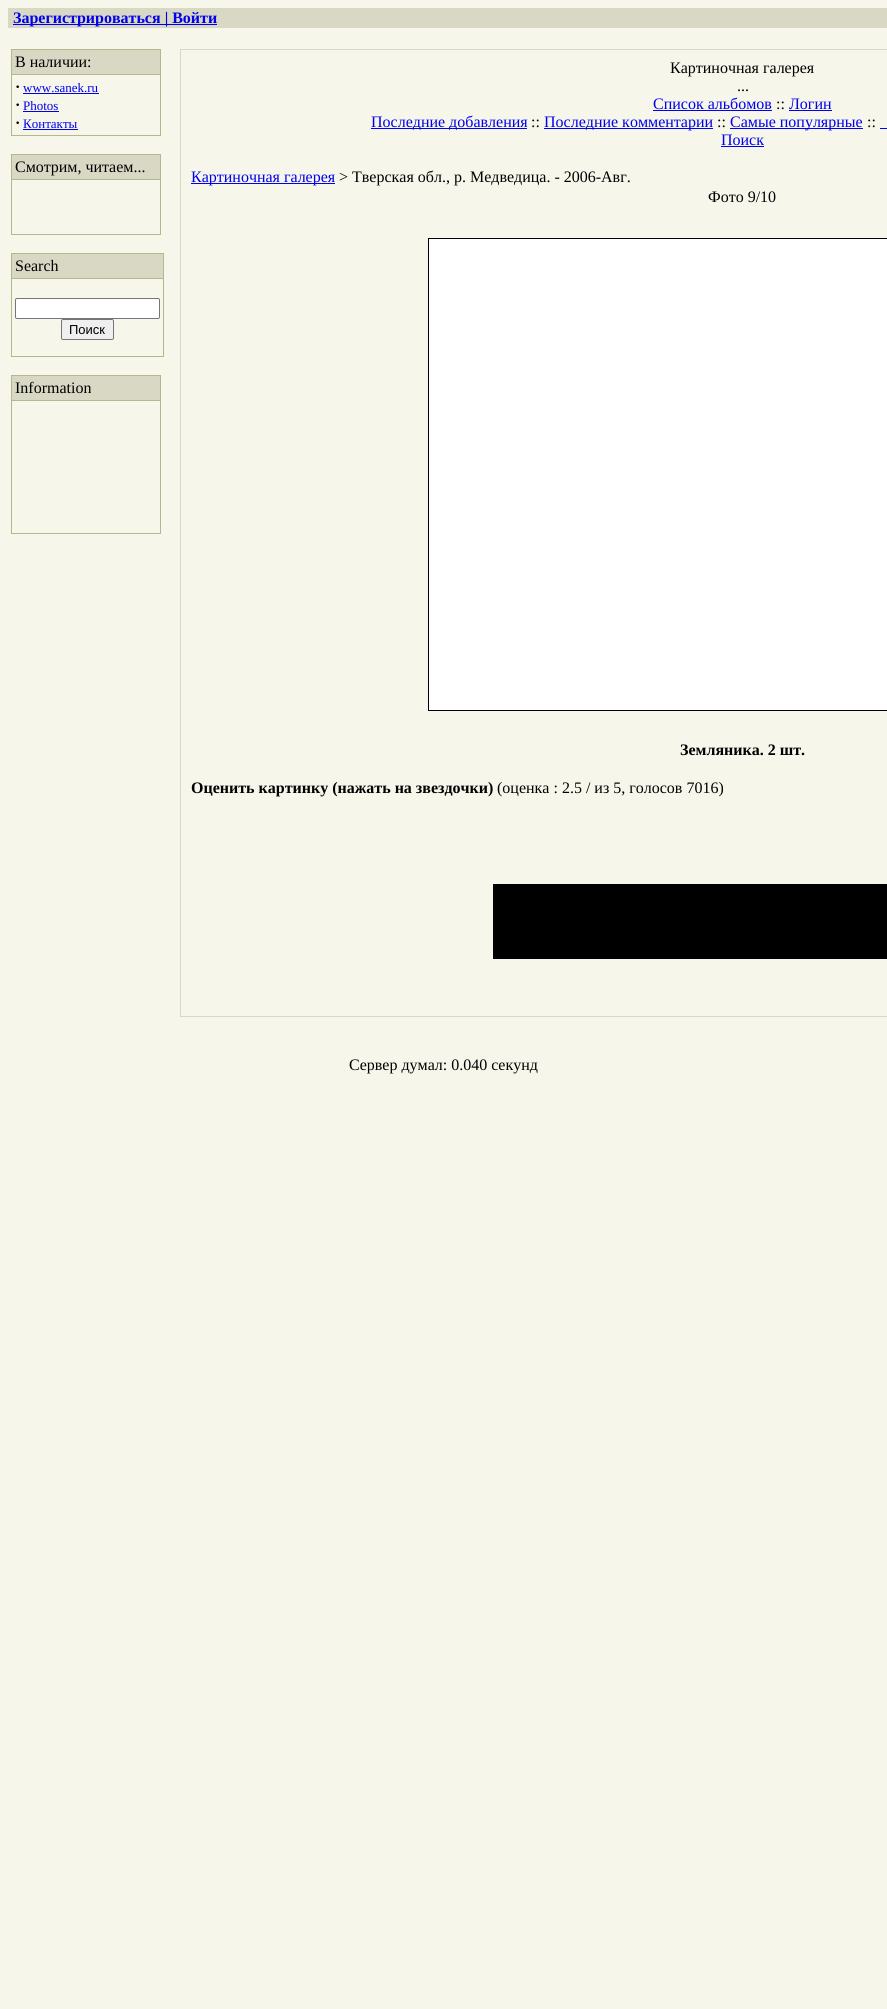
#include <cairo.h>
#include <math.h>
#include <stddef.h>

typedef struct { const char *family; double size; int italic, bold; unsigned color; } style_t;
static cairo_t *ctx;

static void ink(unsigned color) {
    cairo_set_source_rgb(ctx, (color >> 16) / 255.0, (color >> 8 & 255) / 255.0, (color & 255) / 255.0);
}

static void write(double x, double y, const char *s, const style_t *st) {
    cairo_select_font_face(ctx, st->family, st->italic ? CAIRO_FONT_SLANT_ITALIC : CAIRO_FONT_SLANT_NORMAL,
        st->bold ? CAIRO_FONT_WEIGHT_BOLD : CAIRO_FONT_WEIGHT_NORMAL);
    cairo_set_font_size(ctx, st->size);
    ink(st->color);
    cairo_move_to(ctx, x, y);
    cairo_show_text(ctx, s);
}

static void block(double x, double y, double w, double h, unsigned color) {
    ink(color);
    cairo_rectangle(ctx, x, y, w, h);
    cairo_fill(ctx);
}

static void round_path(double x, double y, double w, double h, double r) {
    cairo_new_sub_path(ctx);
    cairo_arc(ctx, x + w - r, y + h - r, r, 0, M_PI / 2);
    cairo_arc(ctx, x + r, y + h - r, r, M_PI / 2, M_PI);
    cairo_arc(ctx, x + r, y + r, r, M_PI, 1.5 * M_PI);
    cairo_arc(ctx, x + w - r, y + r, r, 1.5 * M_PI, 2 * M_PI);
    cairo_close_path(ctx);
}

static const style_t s1 = {"Liberation Serif", 16, 0, 1, 0x0000ee};
static const style_t s2 = {"Liberation Serif", 16, 0, 0, 0x000000};
static const style_t s3 = {"Liberation Serif", 16, 0, 1, 0x000000};
static const style_t s4 = {"Liberation Serif", 13, 0, 0, 0x0000ee};
static const style_t s5 = {"Liberation Sans", 13, 0, 0, 0x000000};
static const style_t s6 = {"Liberation Serif", 16, 0, 0, 0x0000ee};

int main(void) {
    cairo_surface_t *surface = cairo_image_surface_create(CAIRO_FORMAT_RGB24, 887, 2009);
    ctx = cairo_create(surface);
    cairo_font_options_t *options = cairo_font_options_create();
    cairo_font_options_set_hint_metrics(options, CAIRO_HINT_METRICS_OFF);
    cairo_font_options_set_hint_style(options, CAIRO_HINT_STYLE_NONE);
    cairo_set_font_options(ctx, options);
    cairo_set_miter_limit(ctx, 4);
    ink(0xf6f6eb);
    cairo_paint(ctx);
    block(8, 8, 879, 20, 0xd8d8c4);
    block(13, 24, 204, 1, 0x0000ee);
    write(13, 23, "Зарегистрироваться | Войти", &s1);
    block(11, 49, 150, 87, 0xb7b78b);
    block(12, 50, 148, 24, 0xd8d8c4);
    write(15, 67, "В наличии:", &s2);
    block(12, 75, 148, 60, 0xf6f6eb);
    write(15, 92, "·", &s3);
    write(23, 92, "www.sanek.ru", &s4);
    block(23, 93, 76, 1, 0x0000ee);
    write(15, 110, "·", &s3);
    write(23, 110, "Photos", &s4);
    block(23, 111, 36, 1, 0x0000ee);
    write(15, 128, "·", &s3);
    write(23, 128, "Контакты", &s4);
    block(23, 129, 55, 1, 0x0000ee);
    block(11, 154, 150, 81, 0xb7b78b);
    block(12, 155, 148, 24, 0xd8d8c4);
    write(15, 172, "Смотрим, читаем...", &s2);
    block(12, 180, 148, 54, 0xf6f6eb);
    block(11, 253, 153, 104, 0xb7b78b);
    block(12, 254, 151, 24, 0xd8d8c4);
    write(15, 271, "Search", &s2);
    block(12, 279, 151, 77, 0xf6f6eb);
    ink(0xffffff);
    round_path(15.5, 298.5, 144, 20, 1.5);
    cairo_fill_preserve(ctx);
    ink(0x767676);
    cairo_set_line_width(ctx, 1);
    cairo_stroke(ctx);
    ink(0xefefef);
    round_path(61.5, 319.5, 52, 20, 1.5);
    cairo_fill_preserve(ctx);
    ink(0x767676);
    cairo_stroke(ctx);
    write(69, 334, "Поиск", &s5);
    block(11, 375, 150, 159, 0xb7b78b);
    block(12, 376, 148, 24, 0xd8d8c4);
    write(15, 393, "Information", &s2);
    block(12, 401, 148, 132, 0xf6f6eb);
    block(180, 49, 707, 968, 0xd8d8c4);
    block(181, 50, 706, 966, 0xf6f6eb);
    write(670, 73, "Картиночная галерея", &s2);
    write(737, 91, "...", &s2);
    write(653, 109, "Список альбомов", &s6);
    block(653, 110, 119, 1, 0x0000ee);
    write(776, 109, "::", &s2);
    write(789, 109, "Логин", &s6);
    block(789, 110, 43, 1, 0x0000ee);
    block(371, 128, 156, 1, 0x0000ee);
    write(371, 127, "Последние добавления", &s6);
    write(531, 127, "::", &s2);
    block(544, 128, 169, 1, 0x0000ee);
    write(544, 127, "Последние комментарии", &s6);
    write(717, 127, "::", &s2);
    block(730, 128, 133, 1, 0x0000ee);
    write(730, 127, "Самые популярные", &s6);
    write(867, 127, "::", &s2);
    block(880, 128, 7, 1, 0x0000ee);
    write(721, 145, "Поиск", &s6);
    block(721, 146, 43, 1, 0x0000ee);
    block(191, 183, 144, 1, 0x0000ee);
    write(191, 182, "Картиночная галерея", &s6);
    write(339, 182, "> Тверская обл., р. Медведица. - 2006-Авг.", &s2);
    write(708, 202, "Фото 9/10", &s2);
    ink(0xffffff);
    cairo_rectangle(ctx, 428.5, 238.5, 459, 472);
    cairo_fill_preserve(ctx);
    ink(0x000000);
    cairo_stroke(ctx);
    write(680, 755, "Земляника. 2 шт.", &s3);
    write(191, 793, "Оценить картинку (нажать на звездочки)", &s3);
    write(497, 793, "(оценка : 2.5 / из 5, голосов 7016)", &s2);
    block(493, 884, 394, 75, 0x000000);
    write(349, 1070, "Сервер думал: 0.040 секунд", &s2);
    cairo_surface_write_to_png(surface, "screenshot.png");
    cairo_font_options_destroy(options);
    cairo_destroy(ctx);
    cairo_surface_destroy(surface);
    return 0;
}
